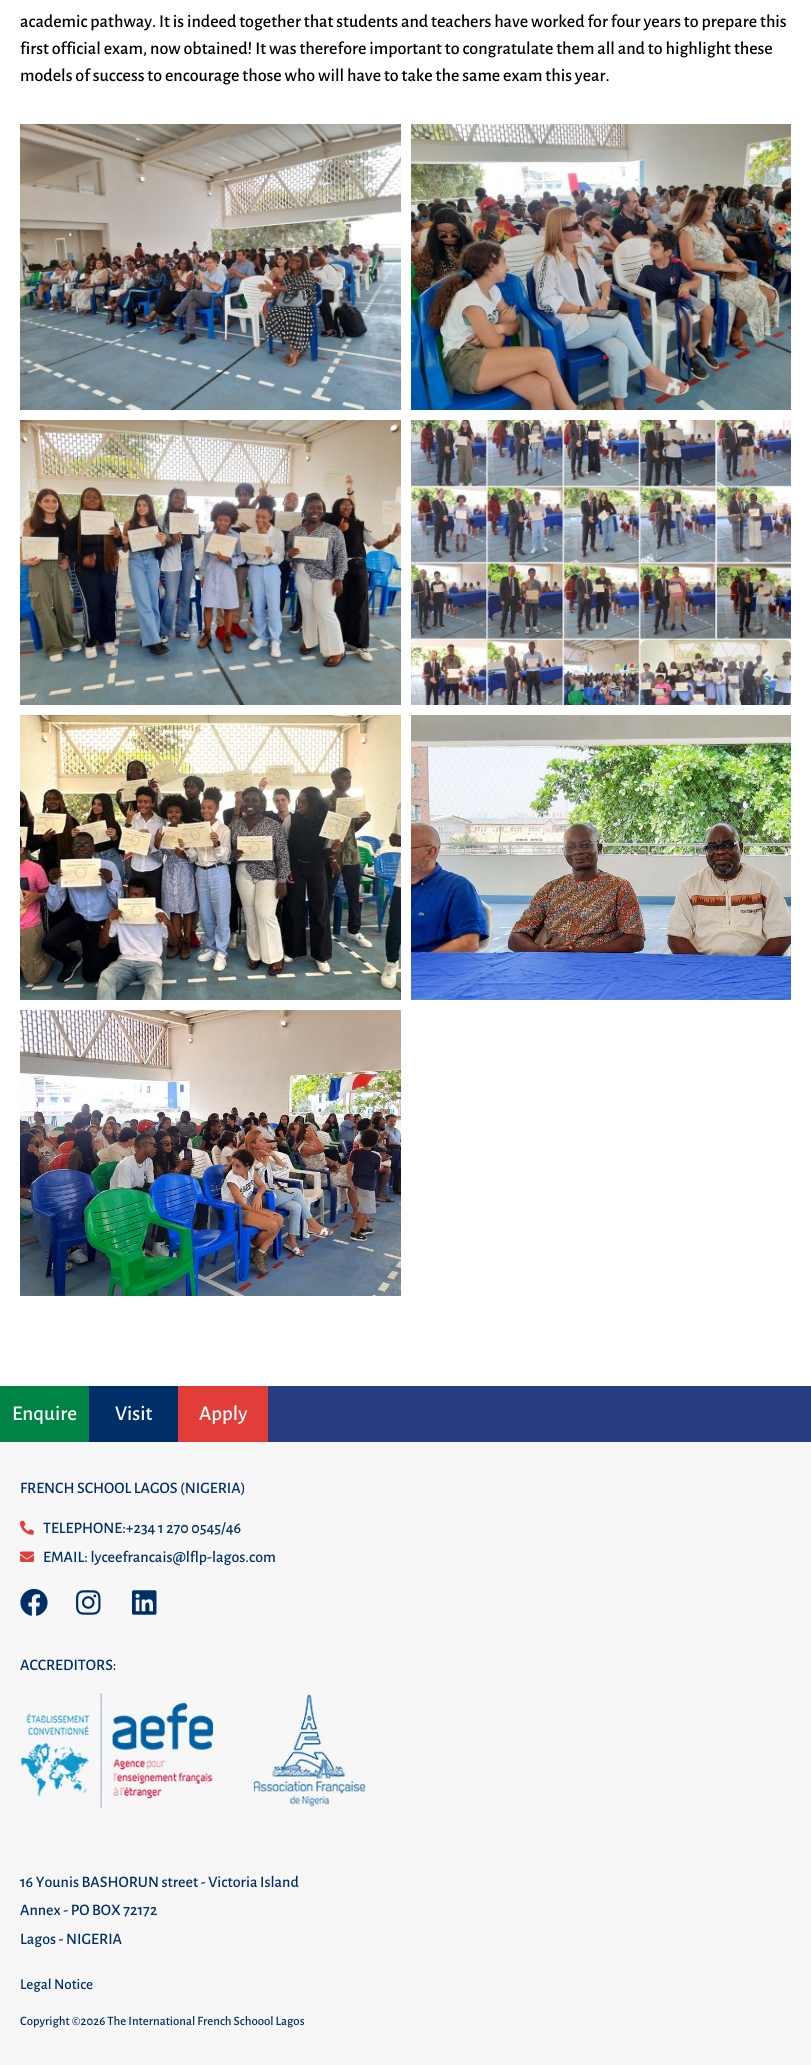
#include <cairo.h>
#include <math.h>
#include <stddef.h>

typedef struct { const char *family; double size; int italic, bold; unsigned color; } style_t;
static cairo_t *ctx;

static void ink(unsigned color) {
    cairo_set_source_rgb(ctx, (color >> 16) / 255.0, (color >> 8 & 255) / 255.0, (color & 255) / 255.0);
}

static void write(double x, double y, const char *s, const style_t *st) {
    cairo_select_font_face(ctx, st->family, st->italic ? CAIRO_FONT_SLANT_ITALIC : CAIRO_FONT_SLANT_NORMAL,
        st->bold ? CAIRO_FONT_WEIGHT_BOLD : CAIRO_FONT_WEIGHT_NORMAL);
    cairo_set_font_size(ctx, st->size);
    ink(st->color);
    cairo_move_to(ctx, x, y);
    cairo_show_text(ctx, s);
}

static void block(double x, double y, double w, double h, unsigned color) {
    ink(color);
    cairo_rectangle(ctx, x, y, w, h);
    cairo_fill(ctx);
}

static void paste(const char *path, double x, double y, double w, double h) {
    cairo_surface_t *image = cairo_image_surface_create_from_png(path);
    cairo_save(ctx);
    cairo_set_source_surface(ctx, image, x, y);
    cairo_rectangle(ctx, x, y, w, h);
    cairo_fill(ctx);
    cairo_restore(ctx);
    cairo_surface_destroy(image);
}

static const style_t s1 = {"Alegreya Sans Medium", 18, 0, 0, 0x000000};
static const style_t s2 = {"Alegreya Sans Medium", 21, 0, 0, 0xffffff};
static const style_t s3 = {"Alegreya Sans Medium", 16, 0, 0, 0x002f67};
static const style_t s4 = {"Alegreya Sans Medium", 15, 0, 0, 0x002f67};
static const style_t s5 = {"Alegreya Sans Medium", 12.8, 0, 0, 0x002f67};

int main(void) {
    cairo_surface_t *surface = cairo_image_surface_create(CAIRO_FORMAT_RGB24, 811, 2065);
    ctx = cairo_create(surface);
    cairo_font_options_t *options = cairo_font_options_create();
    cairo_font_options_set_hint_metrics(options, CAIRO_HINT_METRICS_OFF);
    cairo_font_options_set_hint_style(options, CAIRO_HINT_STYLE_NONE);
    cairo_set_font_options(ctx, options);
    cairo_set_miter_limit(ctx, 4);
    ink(0xffffff);
    cairo_paint(ctx);
    write(20, 27, "academic pathway. It is indeed together that students and teachers have worked for four years to prepare this", &s1);
    write(20, 54, "first official exam, now obtained! It was therefore important to congratulate them all and to highlight these", &s1);
    write(20, 81, "models of success to encourage those who will have to take the same exam this year.", &s1);
    paste("pic1.png", 20, 124, 381, 286);
    paste("pic2.png", 411, 124, 380, 286);
    paste("pic3.png", 20, 420, 381, 285);
    paste("pic4.png", 411, 420, 380, 285);
    paste("pic5.png", 20, 715, 381, 285);
    paste("pic6.png", 411, 715, 380, 285);
    paste("pic7.png", 20, 1010, 381, 286);
    block(268, 1386, 543, 56, 0x2a3c84);
    block(0, 1386, 89, 56, 0x008446);
    write(12, 1420, "Enquire", &s2);
    block(89, 1386, 89, 56, 0x002f67);
    write(115, 1420, "Visit", &s2);
    block(178, 1386, 90, 56, 0xe33d3a);
    write(199, 1420, "Apply", &s2);
    block(0, 1442, 811, 623, 0xf7f7f7);
    write(20, 1493, "FRENCH SCHOOL LAGOS (NIGERIA)", &s3);
    paste("pic8.png", 20, 1520, 14, 15);
    write(43, 1533, "TELEPHONE:+234 1 270 0545/46", &s3);
    paste("pic9.png", 20, 1551, 14, 11);
    write(43, 1562, "EMAIL: lyceefrancais@lflp-lagos.com", &s3);
    paste("pic10.png", 20, 1589, 28, 27);
    paste("pic11.png", 76, 1590, 25, 25);
    paste("pic12.png", 132, 1590, 25, 25);
    write(20, 1670, "ACCREDITORS:", &s3);
    paste("pic13.png", 20, 1693, 193, 115);
    paste("pic14.png", 250, 1693, 119, 115);
    write(20, 1887, "16 Younis BASHORUN street - Victoria Island", &s3);
    write(20, 1915, "Annex - PO BOX 72172", &s3);
    write(20, 1944, "Lagos - NIGERIA", &s3);
    write(20, 1989, "Legal Notice", &s4);
    write(20, 2025, "Copyright ©2026 The International French Schoool Lagos", &s5);
    cairo_surface_write_to_png(surface, "screenshot.png");
    cairo_font_options_destroy(options);
    cairo_destroy(ctx);
    cairo_surface_destroy(surface);
    return 0;
}
